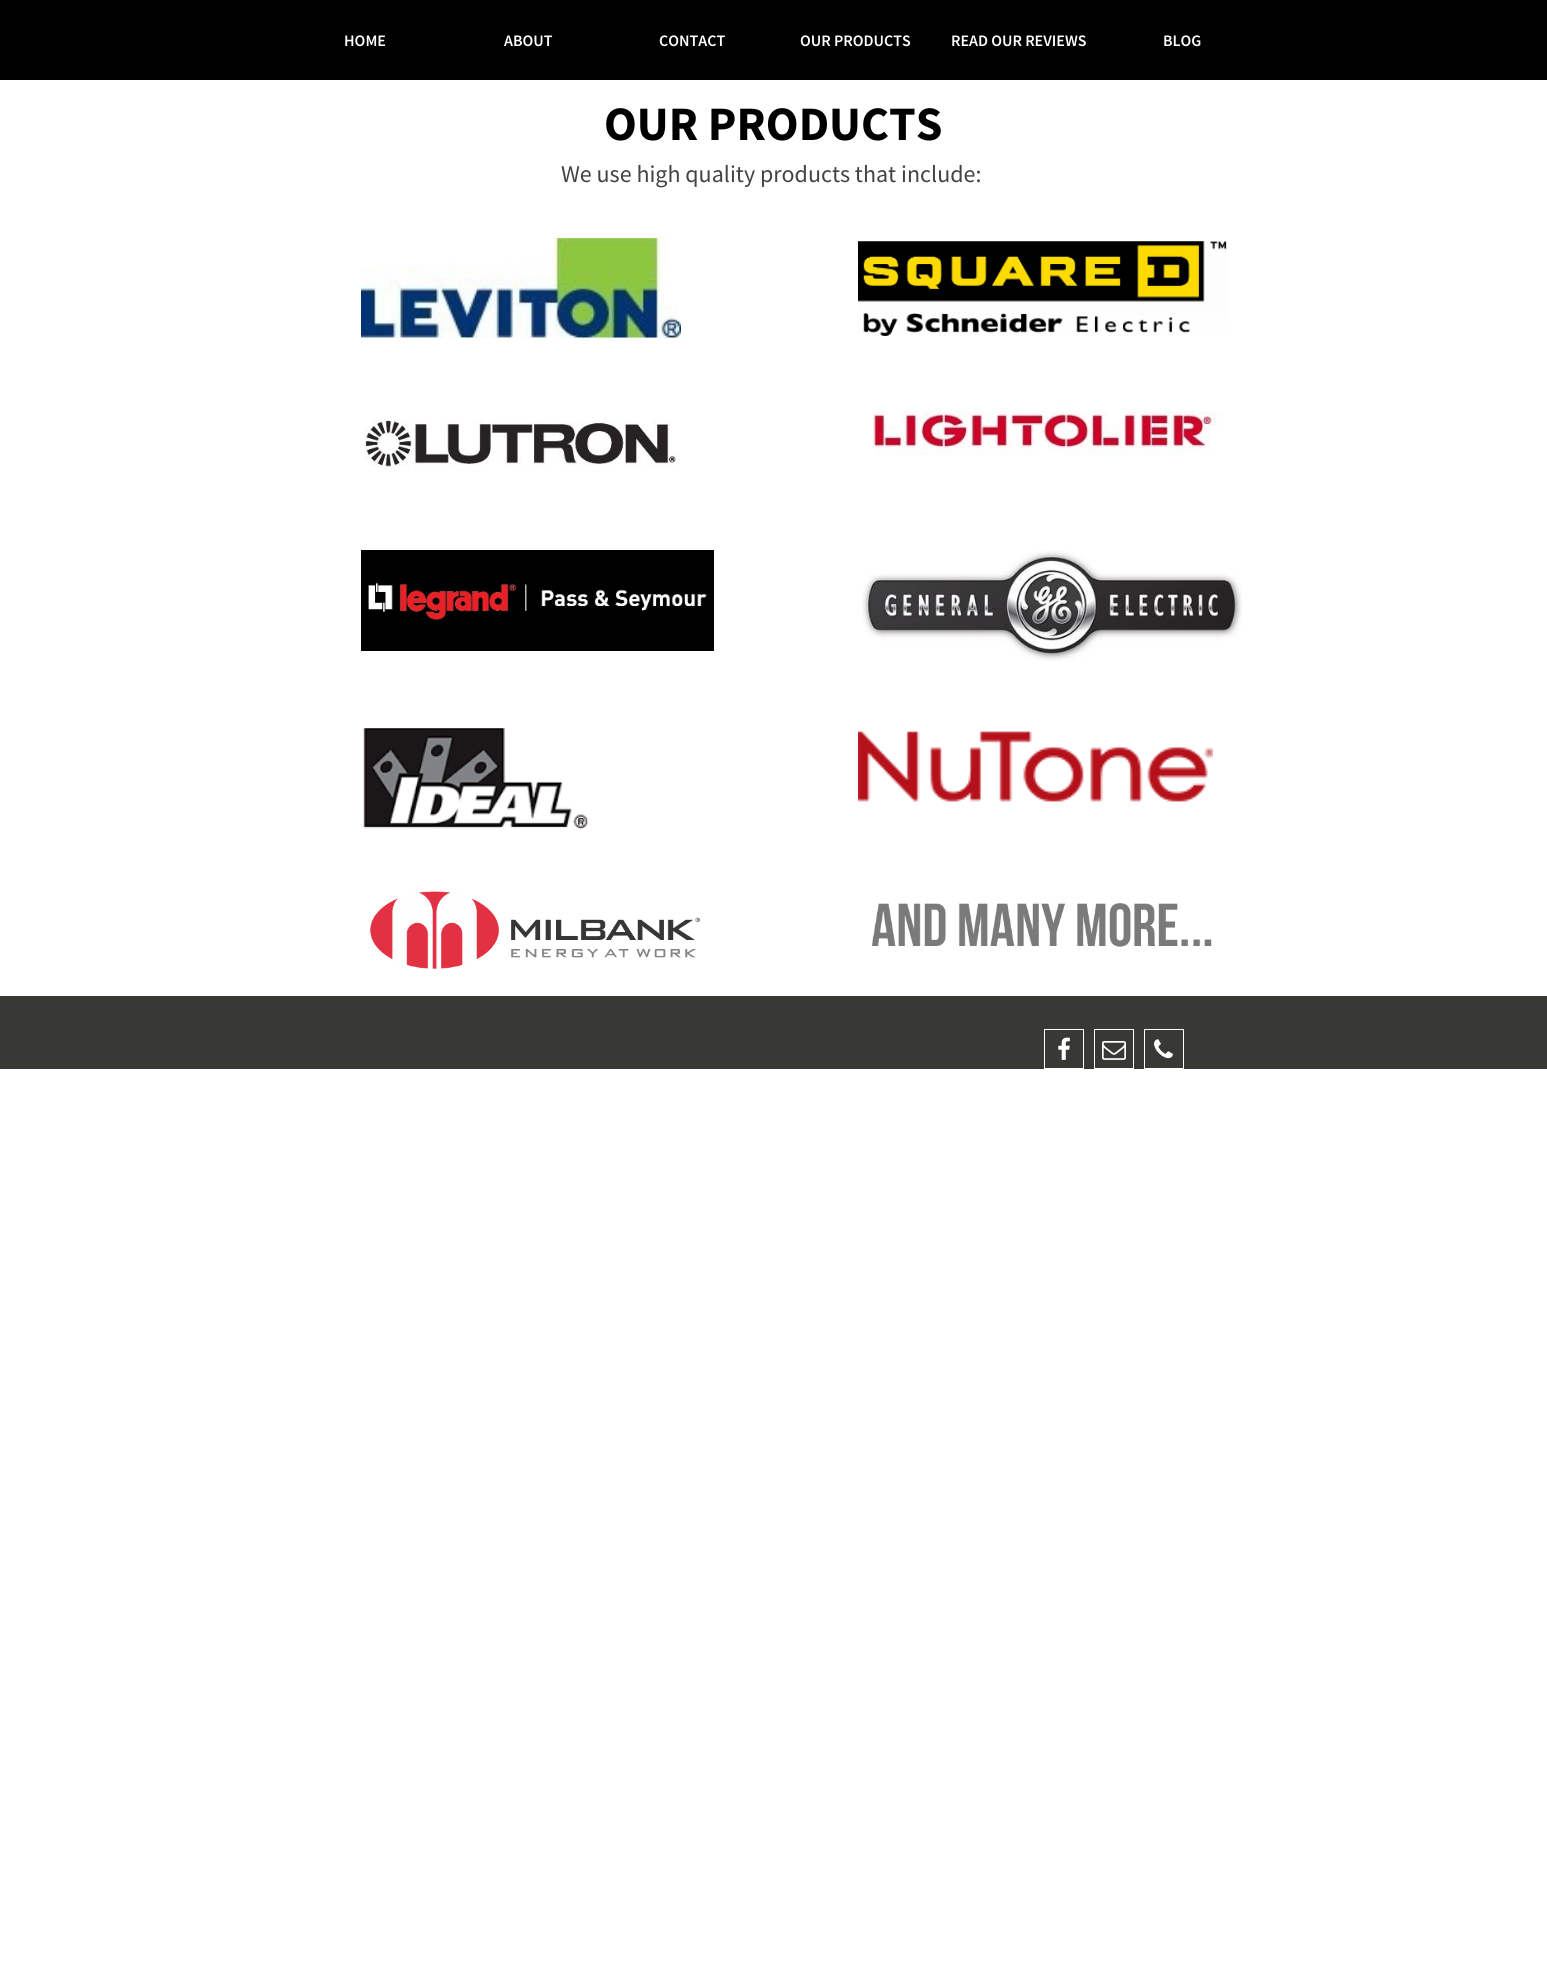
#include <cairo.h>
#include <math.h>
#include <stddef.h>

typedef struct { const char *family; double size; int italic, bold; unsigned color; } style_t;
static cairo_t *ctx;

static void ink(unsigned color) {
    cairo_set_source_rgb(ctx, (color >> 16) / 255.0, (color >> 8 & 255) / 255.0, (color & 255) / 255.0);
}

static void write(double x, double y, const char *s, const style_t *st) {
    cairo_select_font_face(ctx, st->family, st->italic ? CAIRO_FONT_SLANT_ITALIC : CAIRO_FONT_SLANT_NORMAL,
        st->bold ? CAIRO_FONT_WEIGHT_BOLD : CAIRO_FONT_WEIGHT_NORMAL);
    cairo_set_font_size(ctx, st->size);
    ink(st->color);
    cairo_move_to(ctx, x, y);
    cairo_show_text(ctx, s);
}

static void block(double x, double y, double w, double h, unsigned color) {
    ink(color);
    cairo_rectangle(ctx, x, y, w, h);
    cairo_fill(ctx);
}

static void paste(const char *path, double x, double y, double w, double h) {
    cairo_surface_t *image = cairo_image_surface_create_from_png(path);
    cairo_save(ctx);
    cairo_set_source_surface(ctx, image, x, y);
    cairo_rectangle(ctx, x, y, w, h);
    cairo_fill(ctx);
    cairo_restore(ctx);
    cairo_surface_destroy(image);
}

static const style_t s1 = {"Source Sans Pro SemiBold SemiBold", 16, 0, 0, 0xffffff};
static const style_t s2 = {"Source Sans Pro", 48, 0, 1, 0x000000};
static const style_t s3 = {"Source Sans Pro", 24, 0, 0, 0x434343};

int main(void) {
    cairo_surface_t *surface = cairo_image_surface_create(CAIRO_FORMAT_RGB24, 1547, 1976);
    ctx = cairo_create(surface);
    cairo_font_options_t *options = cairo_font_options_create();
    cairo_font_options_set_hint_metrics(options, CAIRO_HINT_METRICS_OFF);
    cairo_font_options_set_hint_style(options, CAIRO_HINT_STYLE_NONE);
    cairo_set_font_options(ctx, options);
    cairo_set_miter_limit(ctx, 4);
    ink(0xffffff);
    cairo_paint(ctx);
    block(0, 0, 1547, 80, 0x000000);
    write(344, 46, "HOME", &s1);
    write(504, 46, "ABOUT", &s1);
    write(659, 46, "CONTACT", &s1);
    write(800, 46, "OUR PRODUCTS", &s1);
    write(951, 46, "READ OUR REVIEWS", &s1);
    write(1163, 46, "BLOG", &s1);
    write(604, 140, "OUR PRODUCTS", &s2);
    write(561, 182, "We use high quality products that include:", &s3);
    paste("pic1.png", 361, 238, 320, 100);
    paste("pic2.png", 858, 241, 369, 95);
    paste("pic3.png", 364, 416, 314, 56);
    paste("pic4.png", 872, 411, 352, 44);
    paste("pic5.png", 361, 550, 353, 101);
    paste("pic6.png", 862, 551, 380, 110);
    paste("pic7.png", 363, 728, 226, 101);
    paste("pic8.png", 858, 731, 355, 71);
    paste("pic9.png", 370, 891, 331, 78);
    paste("pic10.png", 872, 903, 340, 44);
    block(0, 996, 1547, 73, 0x383835);
    cairo_rectangle(ctx, 1044.5, 1029.5, 39, 39);
    ink(0xffffff);
    cairo_set_line_width(ctx, 1);
    cairo_stroke(ctx);
    paste("pic11.png", 1058, 1037, 12, 23);
    cairo_rectangle(ctx, 1094.5, 1029.5, 39, 39);
    cairo_stroke(ctx);
    paste("pic12.png", 1102, 1041, 24, 19);
    cairo_rectangle(ctx, 1144.5, 1029.5, 39, 39);
    cairo_stroke(ctx);
    paste("pic13.png", 1154, 1039, 19, 20);
    cairo_surface_write_to_png(surface, "screenshot.png");
    cairo_font_options_destroy(options);
    cairo_destroy(ctx);
    cairo_surface_destroy(surface);
    return 0;
}
